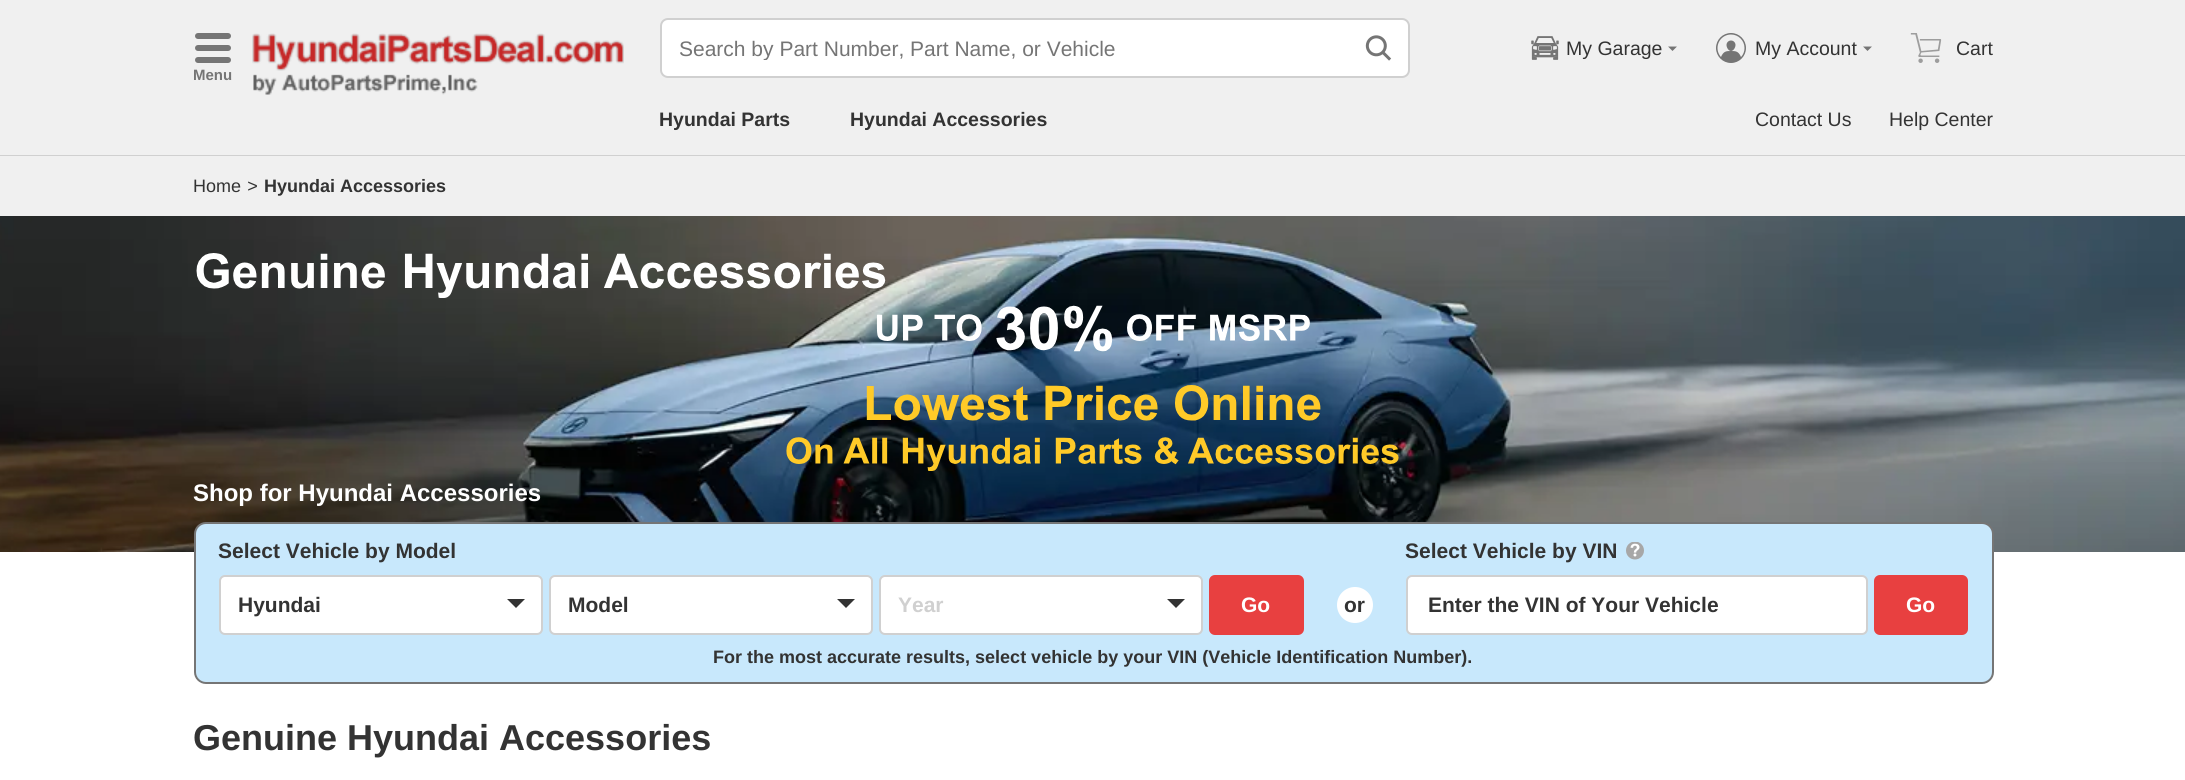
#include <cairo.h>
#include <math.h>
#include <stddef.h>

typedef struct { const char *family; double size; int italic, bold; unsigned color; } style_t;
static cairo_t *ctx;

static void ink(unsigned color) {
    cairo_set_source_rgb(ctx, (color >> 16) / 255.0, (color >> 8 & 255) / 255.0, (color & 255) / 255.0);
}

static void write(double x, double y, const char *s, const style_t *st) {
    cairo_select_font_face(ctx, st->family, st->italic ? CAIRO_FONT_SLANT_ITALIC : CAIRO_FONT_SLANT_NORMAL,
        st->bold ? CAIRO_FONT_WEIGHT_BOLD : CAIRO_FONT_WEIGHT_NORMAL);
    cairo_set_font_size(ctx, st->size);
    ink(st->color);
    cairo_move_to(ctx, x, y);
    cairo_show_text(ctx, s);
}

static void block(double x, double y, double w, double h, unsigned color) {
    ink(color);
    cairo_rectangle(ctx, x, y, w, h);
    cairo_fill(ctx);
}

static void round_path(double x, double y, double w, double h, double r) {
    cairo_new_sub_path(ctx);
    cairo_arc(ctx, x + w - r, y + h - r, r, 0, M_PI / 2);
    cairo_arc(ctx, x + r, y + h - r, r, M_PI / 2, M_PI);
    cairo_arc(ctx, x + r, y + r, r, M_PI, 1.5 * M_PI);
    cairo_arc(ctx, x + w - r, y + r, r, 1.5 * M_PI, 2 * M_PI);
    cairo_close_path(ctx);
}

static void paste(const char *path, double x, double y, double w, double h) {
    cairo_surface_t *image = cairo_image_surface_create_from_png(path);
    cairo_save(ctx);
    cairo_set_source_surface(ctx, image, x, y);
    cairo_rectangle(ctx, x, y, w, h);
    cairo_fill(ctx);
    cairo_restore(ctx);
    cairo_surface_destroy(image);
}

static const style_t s1 = {"Liberation Sans", 21, 0, 0, 0x757575};
static const style_t s2 = {"Liberation Sans", 19.5, 0, 0, 0x333333};
static const style_t s3 = {"Liberation Sans", 15, 0, 1, 0x757575};
static const style_t s4 = {"Liberation Sans", 19.5, 0, 1, 0x333333};
static const style_t s5 = {"Liberation Sans", 18, 0, 0, 0x333333};
static const style_t s6 = {"Liberation Sans", 18, 1, 0, 0x333333};
static const style_t s7 = {"Liberation Sans", 18, 0, 1, 0x333333};
static const style_t s8 = {"Liberation Sans", 24, 0, 1, 0xffffff};
static const style_t s9 = {"Liberation Sans", 21, 0, 1, 0x333333};
static const style_t s10 = {"Liberation Sans", 21, 0, 1, 0xd0d0d0};
static const style_t s11 = {"Liberation Sans", 21, 0, 1, 0xffffff};
static const style_t s12 = {"Liberation Sans", 36, 0, 1, 0x333333};

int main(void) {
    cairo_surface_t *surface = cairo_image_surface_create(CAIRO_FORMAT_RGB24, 2185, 780);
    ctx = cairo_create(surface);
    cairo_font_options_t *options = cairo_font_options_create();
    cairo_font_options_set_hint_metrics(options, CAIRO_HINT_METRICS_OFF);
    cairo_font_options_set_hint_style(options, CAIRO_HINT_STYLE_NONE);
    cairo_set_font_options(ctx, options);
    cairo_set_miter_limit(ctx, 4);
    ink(0xffffff);
    cairo_paint(ctx);
    block(0, 0, 2185, 155, 0xf0f0f0);
    block(0, 155, 2185, 1, 0xd0d0d0);
    ink(0xffffff);
    round_path(661, 19, 748, 58, 7);
    cairo_fill_preserve(ctx);
    ink(0xd0d0d0);
    cairo_stroke(ctx);
    cairo_save(ctx);
    cairo_rectangle(ctx, 680, 36, 610, 24);
    cairo_clip(ctx);
    write(679, 56, "Search by Part Number, Part Name, or Vehicle", &s1);
    cairo_restore(ctx);
    paste("pic1.png", 1365, 35, 27, 26);
    paste("pic2.png", 1531, 36, 28, 24);
    write(1566, 55, "My Garage", &s2);
    ink(0x757575);
    cairo_new_path(ctx);
    cairo_move_to(ctx, 1668, 46.5);
    cairo_line_to(ctx, 1677, 46.5);
    cairo_line_to(ctx, 1672.5, 51);
    cairo_close_path(ctx);
    cairo_fill(ctx);
    paste("pic3.png", 1716, 33, 30, 30);
    write(1755, 55, "My Account", &s2);
    ink(0x757575);
    cairo_new_path(ctx);
    cairo_move_to(ctx, 1863, 46.5);
    cairo_line_to(ctx, 1872, 46.5);
    cairo_line_to(ctx, 1867.5, 51);
    cairo_close_path(ctx);
    cairo_fill(ctx);
    paste("pic4.png", 1910, 33, 32, 30);
    write(1956, 55, "Cart", &s2);
    paste("pic5.png", 195, 33, 36, 30);
    write(193, 80, "Menu", &s3);
    paste("pic6.png", 252, 33, 372, 38);
    paste("pic7.png", 253, 74, 225, 21);
    write(659, 126, "Hyundai Parts", &s4);
    write(850, 126, "Hyundai Accessories", &s4);
    write(1755, 126, "Contact Us", &s2);
    write(1889, 126, "Help Center", &s2);
    block(0, 156, 2185, 60, 0xf0f0f0);
    write(193, 192, "Home", &s5);
    write(247, 192, ">", &s6);
    write(264, 192, "Hyundai Accessories", &s7);
    paste("pic8.png", 0, 216, 2185, 336);
    paste("pic9.png", 196, 253, 1203, 218);
    write(193, 501, "Shop for Hyundai Accessories", &s8);
    ink(0xc8e8fc);
    round_path(195, 523, 1798, 160, 11);
    cairo_fill_preserve(ctx);
    ink(0x757575);
    cairo_stroke(ctx);
    write(218, 558, "Select Vehicle by Model", &s9);
    ink(0xffffff);
    round_path(220, 576, 322, 58, 5);
    cairo_fill_preserve(ctx);
    ink(0xd0d0d0);
    cairo_stroke(ctx);
    write(238, 612, "Hyundai", &s9);
    cairo_new_path(ctx);
    cairo_move_to(ctx, 507, 599);
    cairo_line_to(ctx, 525, 599);
    cairo_line_to(ctx, 516, 608);
    cairo_close_path(ctx);
    cairo_fill(ctx);
    ink(0xffffff);
    round_path(550, 576, 322, 58, 5);
    cairo_fill_preserve(ctx);
    ink(0xd0d0d0);
    cairo_stroke(ctx);
    write(568, 612, "Model", &s9);
    cairo_new_path(ctx);
    cairo_move_to(ctx, 837, 599);
    cairo_line_to(ctx, 855, 599);
    cairo_line_to(ctx, 846, 608);
    cairo_close_path(ctx);
    cairo_fill(ctx);
    ink(0xffffff);
    round_path(880, 576, 322, 58, 5);
    cairo_fill_preserve(ctx);
    ink(0xd0d0d0);
    cairo_stroke(ctx);
    write(898, 612, "Year", &s10);
    ink(0x333333);
    cairo_new_path(ctx);
    cairo_move_to(ctx, 1167, 599);
    cairo_line_to(ctx, 1185, 599);
    cairo_line_to(ctx, 1176, 608);
    cairo_close_path(ctx);
    cairo_fill(ctx);
    ink(0xe84040);
    round_path(1210, 576, 93, 58, 5);
    cairo_fill_preserve(ctx);
    cairo_stroke(ctx);
    write(1241, 612, "Go", &s11);
    write(1405, 558, "Select Vehicle by VIN", &s9);
    paste("pic10.png", 1626, 542, 18, 18);
    ink(0xffffff);
    round_path(1407, 576, 460, 58, 5);
    cairo_fill_preserve(ctx);
    ink(0xd0d0d0);
    cairo_stroke(ctx);
    write(1428, 612, "Enter the VIN of Your Vehicle", &s9);
    ink(0xe84040);
    round_path(1875, 576, 92, 58, 5);
    cairo_fill_preserve(ctx);
    cairo_stroke(ctx);
    write(1906, 612, "Go", &s11);
    write(713, 663, "For the most accurate results, select vehicle by your VIN (Vehicle Identification Number).", &s7);
    ink(0xffffff);
    cairo_new_path(ctx);
    cairo_arc(ctx, 1355, 605, 18, 0, 2 * M_PI);
    cairo_fill(ctx);
    write(1344, 612, "or", &s9);
    write(193, 750, "Genuine Hyundai Accessories", &s12);
    cairo_surface_write_to_png(surface, "screenshot.png");
    cairo_font_options_destroy(options);
    cairo_destroy(ctx);
    cairo_surface_destroy(surface);
    return 0;
}
